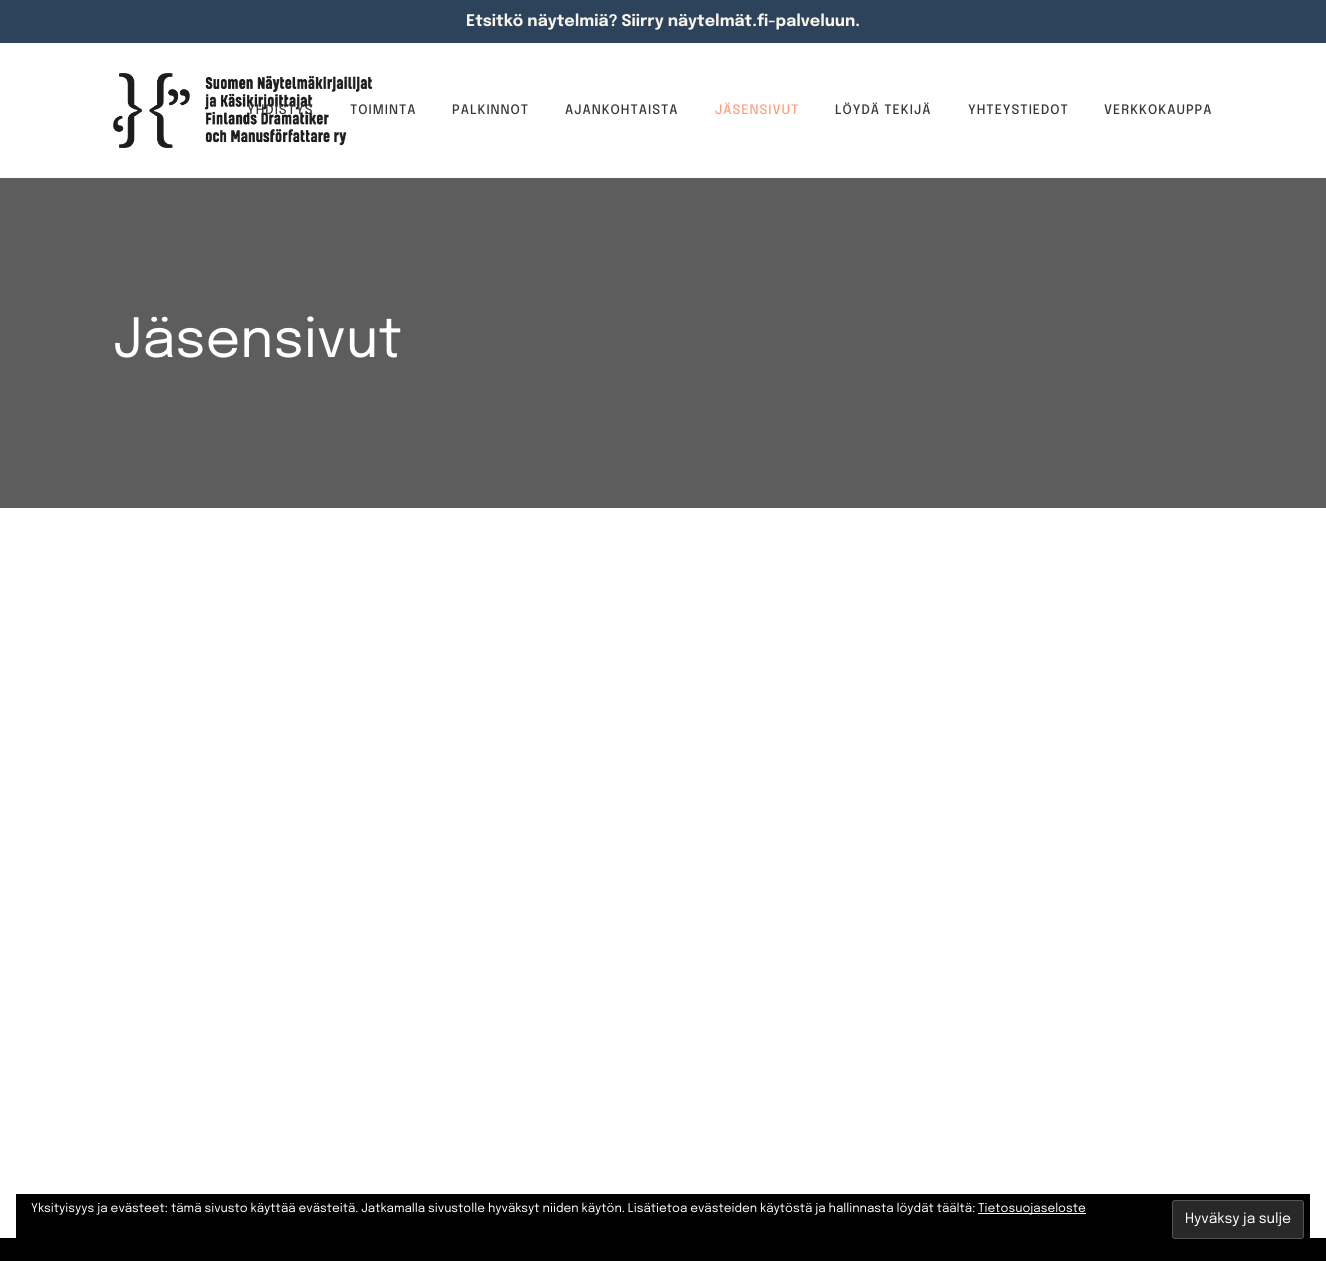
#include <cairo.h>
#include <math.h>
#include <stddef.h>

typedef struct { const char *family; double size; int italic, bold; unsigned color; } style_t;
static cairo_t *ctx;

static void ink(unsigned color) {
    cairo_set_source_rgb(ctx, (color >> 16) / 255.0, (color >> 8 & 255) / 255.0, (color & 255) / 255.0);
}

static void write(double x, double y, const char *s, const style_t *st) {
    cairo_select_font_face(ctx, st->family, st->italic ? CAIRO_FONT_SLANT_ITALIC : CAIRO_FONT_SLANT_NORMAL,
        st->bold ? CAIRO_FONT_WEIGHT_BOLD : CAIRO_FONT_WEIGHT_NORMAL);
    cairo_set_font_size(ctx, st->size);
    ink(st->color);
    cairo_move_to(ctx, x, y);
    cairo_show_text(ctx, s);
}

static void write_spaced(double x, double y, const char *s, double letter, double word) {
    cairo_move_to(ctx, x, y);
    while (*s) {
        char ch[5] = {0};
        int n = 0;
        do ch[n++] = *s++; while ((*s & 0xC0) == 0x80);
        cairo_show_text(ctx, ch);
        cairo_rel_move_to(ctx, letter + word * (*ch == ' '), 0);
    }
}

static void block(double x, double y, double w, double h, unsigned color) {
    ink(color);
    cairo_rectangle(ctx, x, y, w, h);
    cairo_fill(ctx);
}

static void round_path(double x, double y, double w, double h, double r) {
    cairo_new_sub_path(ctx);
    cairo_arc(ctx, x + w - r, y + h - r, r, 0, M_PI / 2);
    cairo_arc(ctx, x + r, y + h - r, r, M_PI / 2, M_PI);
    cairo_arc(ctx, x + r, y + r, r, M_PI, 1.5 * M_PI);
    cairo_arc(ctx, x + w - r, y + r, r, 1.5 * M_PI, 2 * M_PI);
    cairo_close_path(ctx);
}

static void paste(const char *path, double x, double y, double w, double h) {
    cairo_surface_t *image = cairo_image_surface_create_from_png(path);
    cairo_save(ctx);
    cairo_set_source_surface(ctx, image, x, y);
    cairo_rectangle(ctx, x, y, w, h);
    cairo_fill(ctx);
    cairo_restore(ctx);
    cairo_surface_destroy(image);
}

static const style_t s1 = {"Epilogue", 16, 0, 1, 0xf9f4eb};
static const style_t s2 = {"Epilogue", 54, 0, 0, 0xffffff};
static const style_t s3 = {"Epilogue", 12, 0, 0, 0xffffff};
static const style_t s4 = {"Epilogue", 14, 0, 0, 0xffffff};

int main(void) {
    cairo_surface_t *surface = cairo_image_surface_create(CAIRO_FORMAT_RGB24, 1326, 1261);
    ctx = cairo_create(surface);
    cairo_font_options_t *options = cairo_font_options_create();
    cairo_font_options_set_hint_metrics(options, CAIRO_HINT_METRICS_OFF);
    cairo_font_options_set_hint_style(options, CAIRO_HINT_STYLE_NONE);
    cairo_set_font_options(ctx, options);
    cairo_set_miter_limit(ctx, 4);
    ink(0xffffff);
    cairo_paint(ctx);
    block(0, 0, 1326, 43, 0x2d425b);
    write(466, 26, "Etsitkö näytelmiä? Siirry näytelmät.fi-palveluun.", &s1);
    paste("pic1.png", 113, 73, 259, 75);
    cairo_select_font_face(ctx, "Epilogue Medium", CAIRO_FONT_SLANT_NORMAL, CAIRO_FONT_WEIGHT_NORMAL);
    cairo_set_font_size(ctx, 13);
    ink(0x363636);
    write_spaced(247, 114, "YHDISTYS", 1, 0);
    write_spaced(350, 114, "TOIMINTA", 1, 0);
    write_spaced(452, 114, "PALKINNOT", 1, 0);
    write_spaced(565, 114, "AJANKOHTAISTA", 1, 0);
    ink(0xff9f7c);
    write_spaced(715, 114, "JÄSENSIVUT", 1, 0);
    ink(0x363636);
    write_spaced(835, 114, "LÖYDÄ TEKIJÄ", 1, 0);
    write_spaced(968, 114, "YHTEYSTIEDOT", 1, 0);
    write_spaced(1104, 114, "VERKKOKAUPPA", 1, 0);
    block(0, 178, 1326, 330, 0x5d5d5d);
    write(113, 357, "Jäsensivut", &s2);
    block(0, 1238, 1326, 23, 0x000000);
    block(16, 1194, 1294, 44, 0x000000);
    write(31, 1212, "Yksityisyys ja evästeet: tämä sivusto käyttää evästeitä. Jatkamalla sivustolle hyväksyt niiden käytön. Lisätietoa evästeiden käytöstä ja hallinnasta löydät täältä:", &s3);
    block(978, 1213, 108, 1, 0xffffff);
    write(978, 1212, "Tietosuojaseloste", &s3);
    ink(0x282828);
    round_path(1172.5, 1200.5, 131, 38, 2.5);
    cairo_fill_preserve(ctx);
    ink(0x535353);
    cairo_set_line_width(ctx, 1);
    cairo_stroke(ctx);
    write(1185, 1223, "Hyväksy ja sulje", &s4);
    cairo_surface_write_to_png(surface, "screenshot.png");
    cairo_font_options_destroy(options);
    cairo_destroy(ctx);
    cairo_surface_destroy(surface);
    return 0;
}
